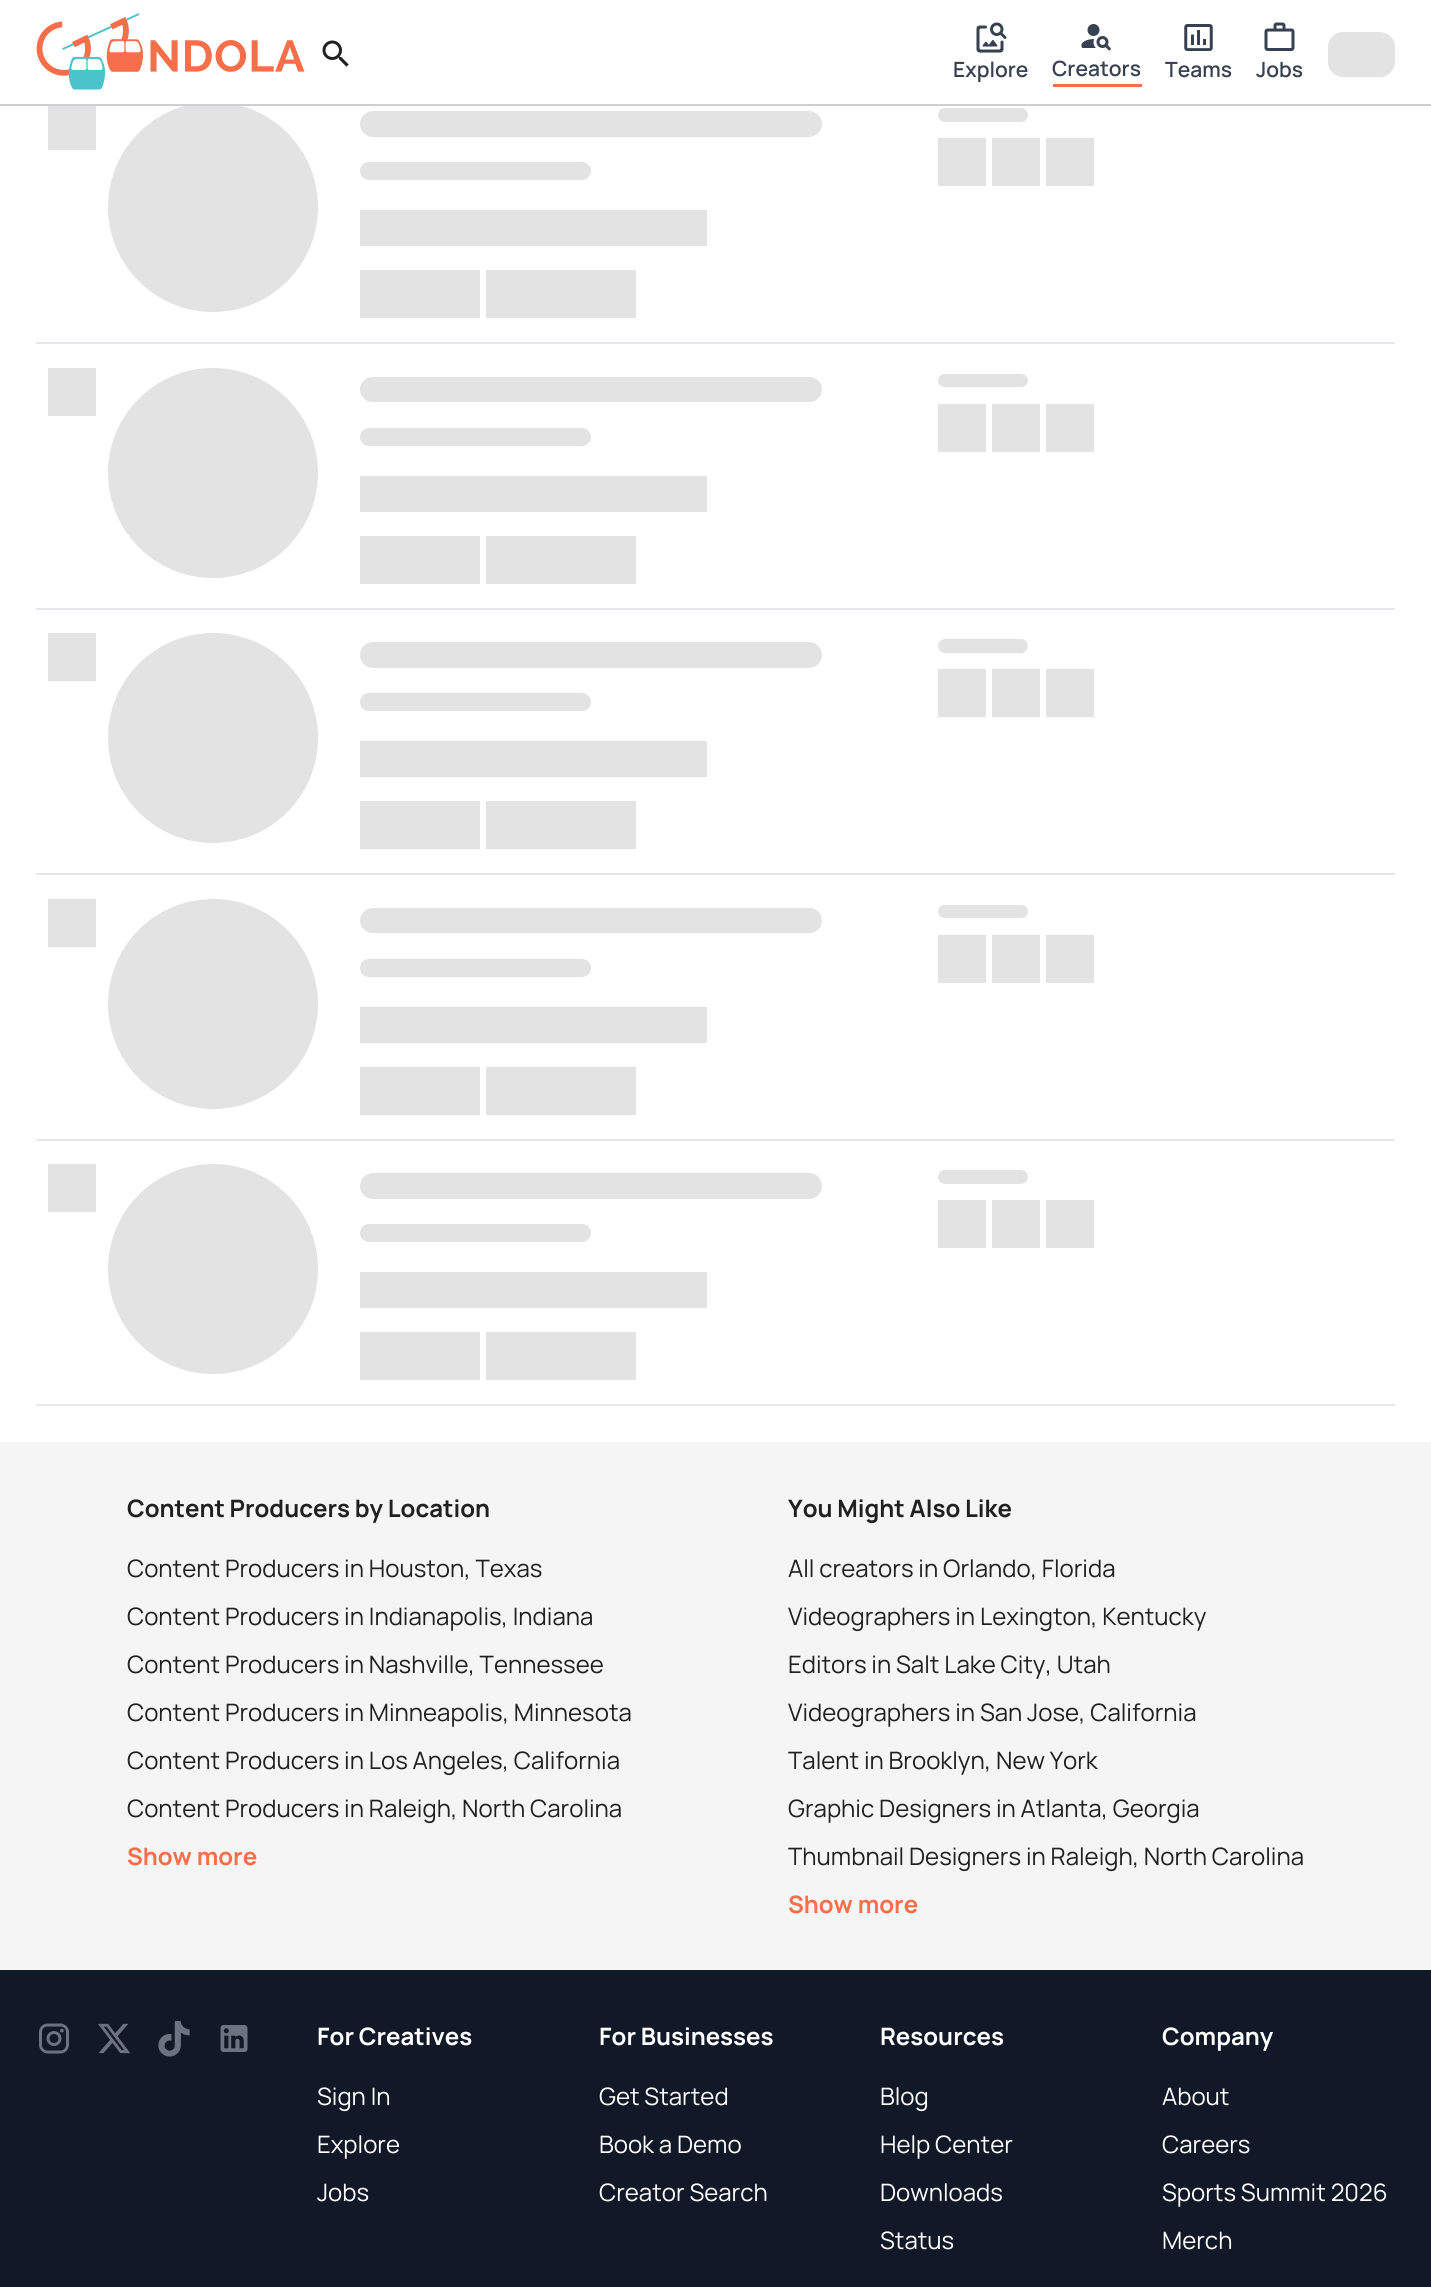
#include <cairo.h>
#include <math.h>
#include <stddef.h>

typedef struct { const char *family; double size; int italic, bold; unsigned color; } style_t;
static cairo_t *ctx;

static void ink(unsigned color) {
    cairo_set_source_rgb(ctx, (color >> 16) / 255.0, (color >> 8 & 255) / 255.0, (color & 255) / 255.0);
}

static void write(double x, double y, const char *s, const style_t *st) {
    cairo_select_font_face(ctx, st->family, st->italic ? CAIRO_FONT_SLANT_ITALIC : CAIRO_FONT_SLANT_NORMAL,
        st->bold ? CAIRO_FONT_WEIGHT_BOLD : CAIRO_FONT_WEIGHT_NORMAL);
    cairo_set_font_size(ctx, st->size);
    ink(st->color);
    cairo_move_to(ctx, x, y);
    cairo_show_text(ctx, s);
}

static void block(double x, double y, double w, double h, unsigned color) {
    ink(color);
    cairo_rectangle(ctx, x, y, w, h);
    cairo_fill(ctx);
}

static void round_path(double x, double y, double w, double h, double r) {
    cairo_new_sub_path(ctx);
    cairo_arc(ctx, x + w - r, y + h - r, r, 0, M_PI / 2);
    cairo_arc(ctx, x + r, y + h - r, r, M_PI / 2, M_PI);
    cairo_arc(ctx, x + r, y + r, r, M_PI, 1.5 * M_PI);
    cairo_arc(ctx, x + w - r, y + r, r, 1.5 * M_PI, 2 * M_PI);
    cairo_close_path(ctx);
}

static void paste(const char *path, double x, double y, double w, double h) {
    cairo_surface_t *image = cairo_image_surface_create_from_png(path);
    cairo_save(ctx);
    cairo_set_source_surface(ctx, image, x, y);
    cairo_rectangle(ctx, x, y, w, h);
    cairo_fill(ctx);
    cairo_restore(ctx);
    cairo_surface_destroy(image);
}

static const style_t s1 = {"Manrope SemiBold", 21, 0, 0, 0x374151};
static const style_t s2 = {"Manrope", 24, 0, 1, 0x202020};
static const style_t s3 = {"Manrope", 24, 0, 0, 0x202020};
static const style_t s4 = {"Manrope", 24, 0, 1, 0xf76f4a};
static const style_t s5 = {"Manrope", 24, 0, 1, 0xffffff};
static const style_t s6 = {"Manrope", 24, 0, 0, 0xffffff};

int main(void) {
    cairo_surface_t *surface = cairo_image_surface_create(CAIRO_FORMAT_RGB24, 1431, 2287);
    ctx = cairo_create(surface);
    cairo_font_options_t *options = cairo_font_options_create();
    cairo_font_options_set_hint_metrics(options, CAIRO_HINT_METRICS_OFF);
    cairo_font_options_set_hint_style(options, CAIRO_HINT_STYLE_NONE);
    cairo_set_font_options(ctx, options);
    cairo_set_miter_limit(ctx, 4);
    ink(0xffffff);
    cairo_paint(ctx);
    ink(0xe3e3e3);
    cairo_arc(ctx, 213, 207, 105, 0, 2 * M_PI);
    cairo_fill(ctx);
    block(193, 102, 40, 2, 0xffffff);
    block(0, 104, 1431, 2, 0xcecfd3);
    paste("pic1.png", 36, 13, 269, 77);
    paste("pic2.png", 322, 40, 27, 27);
    paste("pic3.png", 976, 22, 31, 31);
    write(953, 77, "Explore", &s1);
    block(1053, 84, 89, 3, 0xf76f4a);
    paste("pic4.png", 1081, 24, 30, 27);
    write(1052, 76, "Creators", &s1);
    paste("pic5.png", 1184, 24, 29, 27);
    write(1165, 77, "Teams", &s1);
    paste("pic6.png", 1264, 22, 31, 29);
    write(1256, 77, "Jobs", &s1);
    ink(0xe3e3e3);
    round_path(1328, 32, 67, 45, 15);
    cairo_fill(ctx);
    block(36, 342, 1359, 2, 0xe5e7eb);
    block(48, 106, 48, 44, 0xe3e3e3);
    round_path(360, 111, 462, 26, 13);
    cairo_fill(ctx);
    round_path(360, 162, 231, 18, 9);
    cairo_fill(ctx);
    block(360, 210, 347, 36, 0xe3e3e3);
    block(360, 270, 120, 48, 0xe3e3e3);
    block(486, 270, 150, 48, 0xe3e3e3);
    round_path(938, 108, 90, 14, 7);
    cairo_fill(ctx);
    block(938, 138, 48, 48, 0xe3e3e3);
    block(992, 138, 48, 48, 0xe3e3e3);
    block(1046, 138, 48, 48, 0xe3e3e3);
    block(36, 608, 1359, 2, 0xe5e7eb);
    block(48, 368, 48, 48, 0xe3e3e3);
    cairo_arc(ctx, 213, 473, 105, 0, 2 * M_PI);
    cairo_fill(ctx);
    round_path(360, 377, 462, 25, 12.5);
    cairo_fill(ctx);
    round_path(360, 428, 231, 18, 9);
    cairo_fill(ctx);
    block(360, 476, 347, 36, 0xe3e3e3);
    block(360, 536, 120, 48, 0xe3e3e3);
    block(486, 536, 150, 48, 0xe3e3e3);
    round_path(938, 374, 90, 13, 6.5);
    cairo_fill(ctx);
    block(938, 404, 48, 48, 0xe3e3e3);
    block(992, 404, 48, 48, 0xe3e3e3);
    block(1046, 404, 48, 48, 0xe3e3e3);
    block(36, 873, 1359, 2, 0xe5e7eb);
    block(48, 633, 48, 48, 0xe3e3e3);
    cairo_arc(ctx, 213, 738, 105, 0, 2 * M_PI);
    cairo_fill(ctx);
    round_path(360, 642, 462, 26, 13);
    cairo_fill(ctx);
    round_path(360, 693, 231, 18, 9);
    cairo_fill(ctx);
    block(360, 741, 347, 36, 0xe3e3e3);
    block(360, 801, 120, 48, 0xe3e3e3);
    block(486, 801, 150, 48, 0xe3e3e3);
    round_path(938, 639, 90, 14, 7);
    cairo_fill(ctx);
    block(938, 669, 48, 48, 0xe3e3e3);
    block(992, 669, 48, 48, 0xe3e3e3);
    block(1046, 669, 48, 48, 0xe3e3e3);
    block(36, 1139, 1359, 2, 0xe5e7eb);
    block(48, 899, 48, 48, 0xe3e3e3);
    cairo_arc(ctx, 213, 1004, 105, 0, 2 * M_PI);
    cairo_fill(ctx);
    round_path(360, 908, 462, 25, 12.5);
    cairo_fill(ctx);
    round_path(360, 959, 231, 18, 9);
    cairo_fill(ctx);
    block(360, 1007, 347, 36, 0xe3e3e3);
    block(360, 1067, 120, 48, 0xe3e3e3);
    block(486, 1067, 150, 48, 0xe3e3e3);
    round_path(938, 905, 90, 13, 6.5);
    cairo_fill(ctx);
    block(938, 935, 48, 48, 0xe3e3e3);
    block(992, 935, 48, 48, 0xe3e3e3);
    block(1046, 935, 48, 48, 0xe3e3e3);
    block(36, 1404, 1359, 2, 0xe5e7eb);
    block(48, 1164, 48, 48, 0xe3e3e3);
    cairo_arc(ctx, 213, 1269, 105, 0, 2 * M_PI);
    cairo_fill(ctx);
    round_path(360, 1173, 462, 26, 13);
    cairo_fill(ctx);
    round_path(360, 1224, 231, 18, 9);
    cairo_fill(ctx);
    block(360, 1272, 347, 36, 0xe3e3e3);
    block(360, 1332, 120, 48, 0xe3e3e3);
    block(486, 1332, 150, 48, 0xe3e3e3);
    round_path(938, 1170, 90, 14, 7);
    cairo_fill(ctx);
    block(938, 1200, 48, 48, 0xe3e3e3);
    block(992, 1200, 48, 48, 0xe3e3e3);
    block(1046, 1200, 48, 48, 0xe3e3e3);
    block(0, 1442, 1431, 528, 0xf5f5f5);
    write(127, 1517, "Content Producers by Location", &s2);
    write(127, 1577, "Content Producers in Houston, Texas", &s3);
    write(127, 1625, "Content Producers in Indianapolis, Indiana", &s3);
    write(127, 1673, "Content Producers in Nashville, Tennessee", &s3);
    write(127, 1721, "Content Producers in Minneapolis, Minnesota", &s3);
    write(127, 1769, "Content Producers in Los Angeles, California", &s3);
    write(127, 1817, "Content Producers in Raleigh, North Carolina", &s3);
    write(127, 1865, "Show more", &s4);
    write(788, 1517, "You Might Also Like", &s2);
    write(788, 1577, "All creators in Orlando, Florida", &s3);
    write(788, 1625, "Videographers in Lexington, Kentucky", &s3);
    write(788, 1673, "Editors in Salt Lake City, Utah", &s3);
    write(788, 1721, "Videographers in San Jose, California", &s3);
    write(788, 1769, "Talent in Brooklyn, New York", &s3);
    write(788, 1817, "Graphic Designers in Atlanta, Georgia", &s3);
    write(788, 1865, "Thumbnail Designers in Raleigh, North Carolina", &s3);
    write(788, 1913, "Show more", &s4);
    block(0, 1970, 1431, 317, 0x111827);
    paste("pic7.png", 39, 2023, 30, 31);
    paste("pic8.png", 98, 2023, 32, 31);
    paste("pic9.png", 158, 2021, 32, 36);
    paste("pic10.png", 220, 2025, 28, 27);
    write(317, 2045, "For Creatives", &s5);
    write(317, 2105, "Sign In", &s6);
    write(317, 2153, "Explore", &s6);
    write(317, 2201, "Jobs", &s6);
    write(599, 2045, "For Businesses", &s5);
    write(599, 2105, "Get Started", &s6);
    write(599, 2153, "Book a Demo", &s6);
    write(599, 2201, "Creator Search", &s6);
    write(880, 2045, "Resources", &s5);
    write(880, 2105, "Blog", &s6);
    write(880, 2153, "Help Center", &s6);
    write(880, 2201, "Downloads", &s6);
    write(880, 2249, "Status", &s6);
    write(1162, 2045, "Company", &s5);
    write(1162, 2105, "About", &s6);
    write(1162, 2153, "Careers", &s6);
    write(1162, 2201, "Sports Summit 2026", &s6);
    write(1162, 2249, "Merch", &s6);
    cairo_surface_write_to_png(surface, "screenshot.png");
    cairo_font_options_destroy(options);
    cairo_destroy(ctx);
    cairo_surface_destroy(surface);
    return 0;
}
